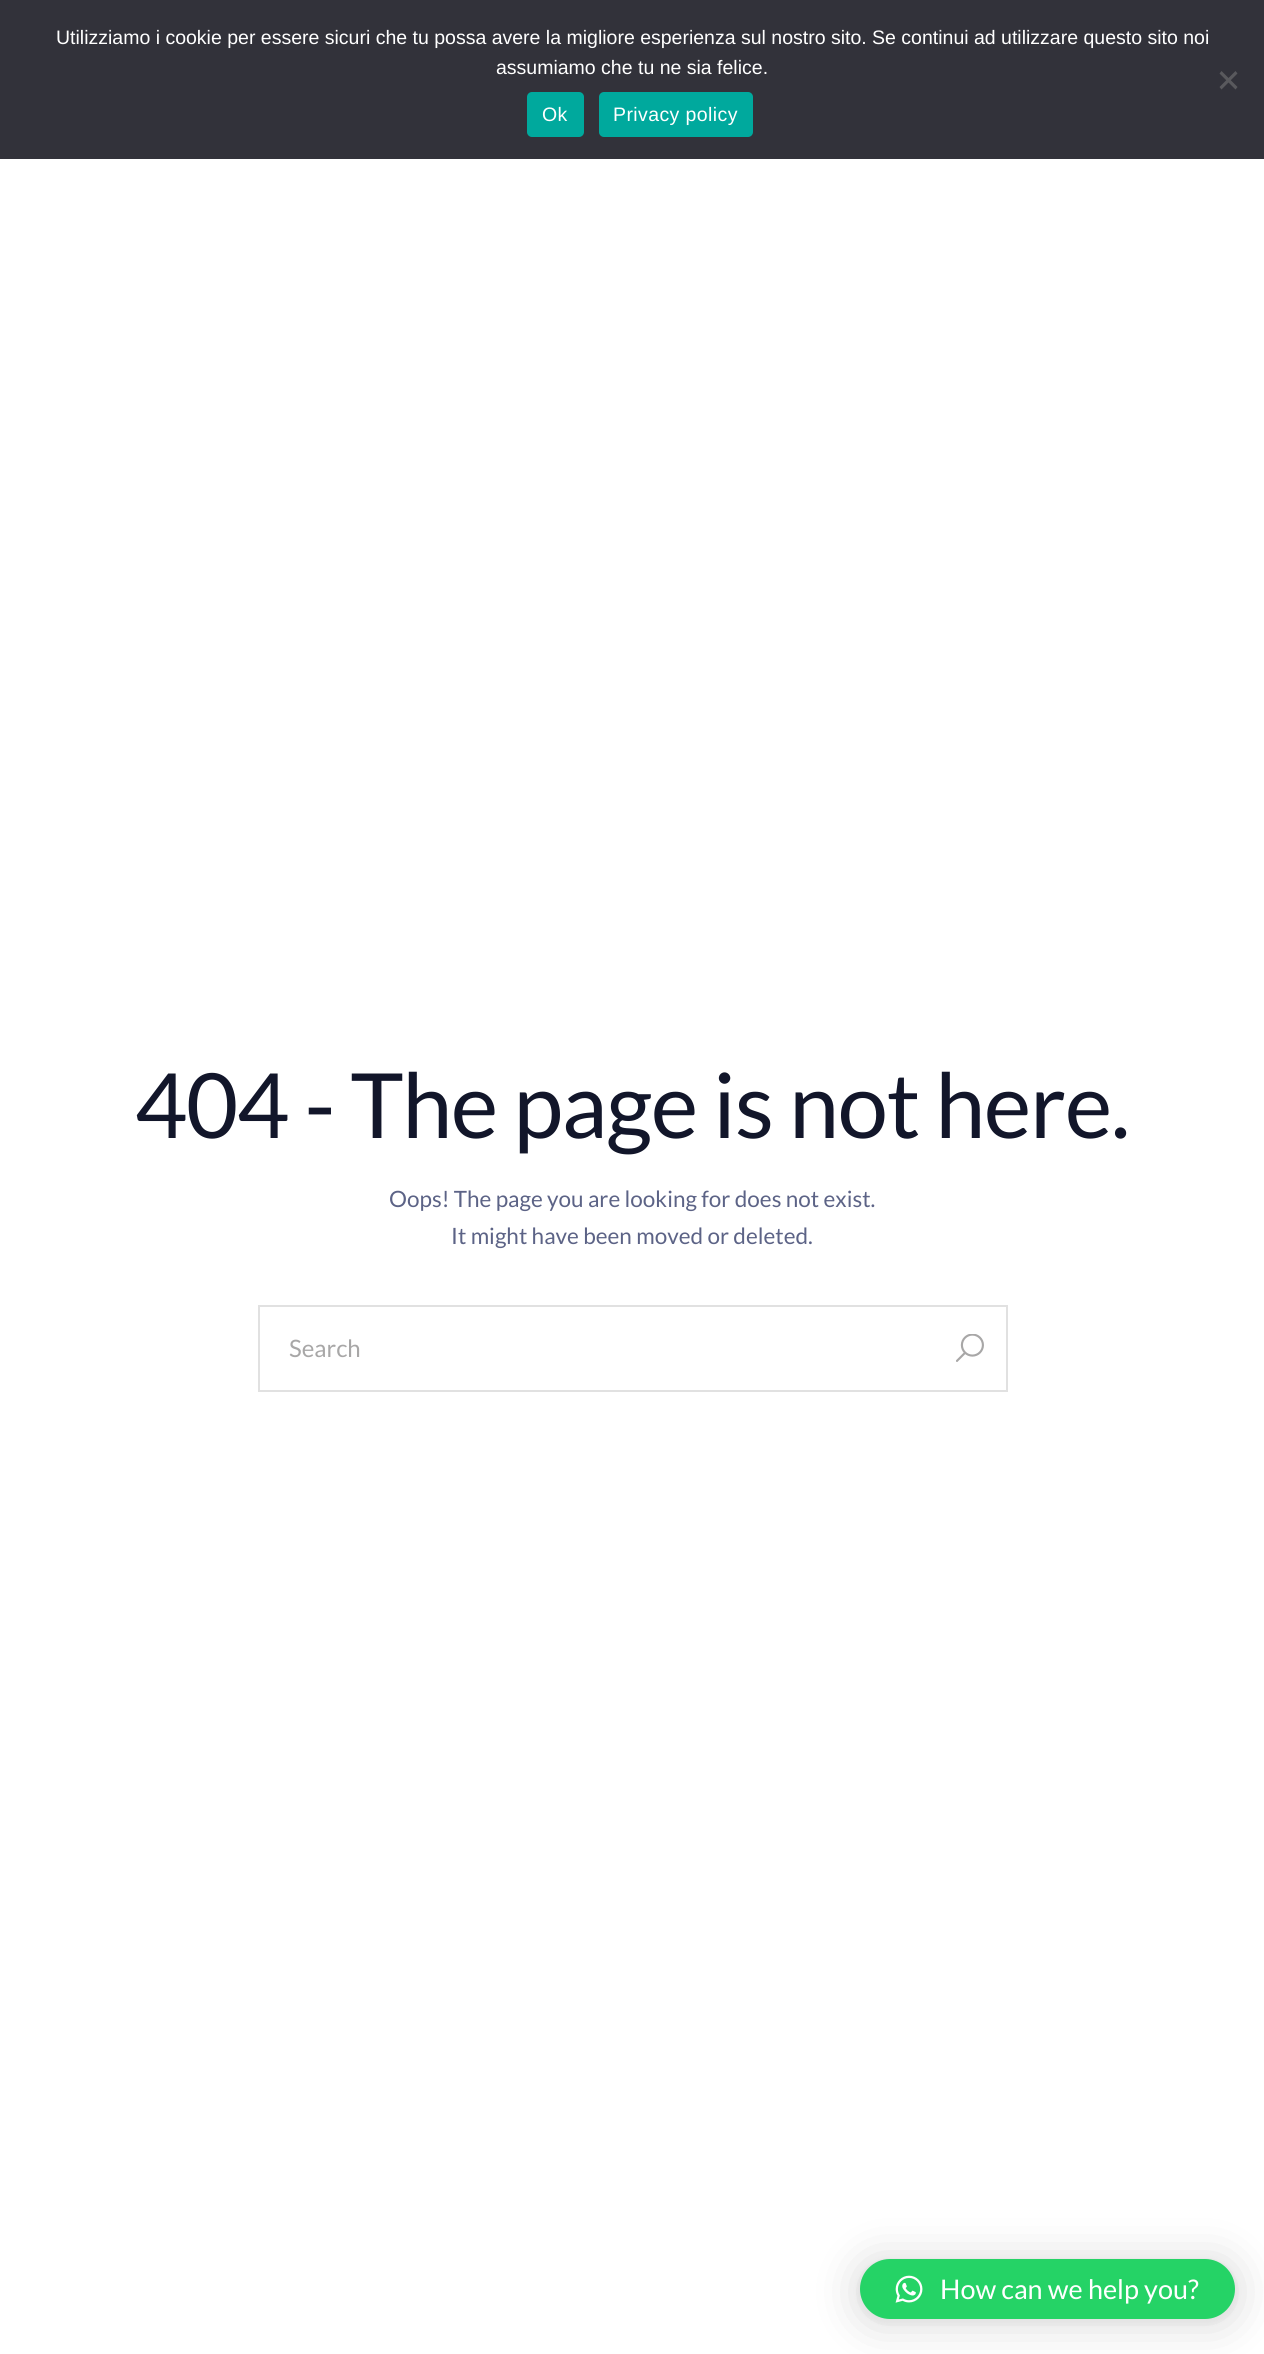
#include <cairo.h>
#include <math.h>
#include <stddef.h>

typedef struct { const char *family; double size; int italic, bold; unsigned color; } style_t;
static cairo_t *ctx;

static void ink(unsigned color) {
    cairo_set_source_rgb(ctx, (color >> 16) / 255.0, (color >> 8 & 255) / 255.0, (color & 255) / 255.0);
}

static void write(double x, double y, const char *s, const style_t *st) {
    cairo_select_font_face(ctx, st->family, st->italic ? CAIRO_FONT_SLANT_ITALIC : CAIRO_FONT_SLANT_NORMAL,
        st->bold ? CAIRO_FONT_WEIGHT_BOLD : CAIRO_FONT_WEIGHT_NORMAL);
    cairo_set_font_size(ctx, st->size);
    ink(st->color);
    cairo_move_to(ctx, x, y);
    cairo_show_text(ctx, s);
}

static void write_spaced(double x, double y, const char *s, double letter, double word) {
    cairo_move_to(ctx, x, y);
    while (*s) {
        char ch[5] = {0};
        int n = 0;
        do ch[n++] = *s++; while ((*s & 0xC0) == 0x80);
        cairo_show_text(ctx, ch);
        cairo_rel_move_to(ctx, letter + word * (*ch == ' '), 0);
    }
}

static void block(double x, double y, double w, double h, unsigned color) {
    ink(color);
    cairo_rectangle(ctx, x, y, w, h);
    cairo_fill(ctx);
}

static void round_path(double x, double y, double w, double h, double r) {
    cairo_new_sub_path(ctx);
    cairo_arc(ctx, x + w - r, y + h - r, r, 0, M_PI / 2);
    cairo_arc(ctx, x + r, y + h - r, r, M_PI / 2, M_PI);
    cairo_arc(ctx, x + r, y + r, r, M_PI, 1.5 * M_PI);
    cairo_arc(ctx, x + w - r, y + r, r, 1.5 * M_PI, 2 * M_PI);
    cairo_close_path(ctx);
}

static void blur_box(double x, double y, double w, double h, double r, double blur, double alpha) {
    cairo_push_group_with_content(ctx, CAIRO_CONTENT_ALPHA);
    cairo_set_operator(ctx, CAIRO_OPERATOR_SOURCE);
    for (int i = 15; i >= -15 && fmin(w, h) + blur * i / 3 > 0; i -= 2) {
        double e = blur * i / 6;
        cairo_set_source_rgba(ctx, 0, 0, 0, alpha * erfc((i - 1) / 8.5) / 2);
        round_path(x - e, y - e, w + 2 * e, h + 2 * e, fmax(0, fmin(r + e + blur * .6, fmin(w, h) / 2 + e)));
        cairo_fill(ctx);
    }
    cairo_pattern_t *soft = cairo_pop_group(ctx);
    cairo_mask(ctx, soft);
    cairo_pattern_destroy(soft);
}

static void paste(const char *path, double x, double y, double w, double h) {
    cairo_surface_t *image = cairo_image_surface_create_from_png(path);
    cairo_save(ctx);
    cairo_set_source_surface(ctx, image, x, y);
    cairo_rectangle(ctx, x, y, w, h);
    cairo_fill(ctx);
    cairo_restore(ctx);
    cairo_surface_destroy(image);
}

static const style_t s1 = {"Liberation Sans", 19.5, 0, 0, 0xffffff};
static const style_t s2 = {"Lato", 22.5, 0, 0, 0x5c6386};
static const style_t s3 = {"Lato", 24, 0, 0, 0xa8a7a7};
static const style_t s4 = {"Lato", 27, 0, 0, 0xffffff};

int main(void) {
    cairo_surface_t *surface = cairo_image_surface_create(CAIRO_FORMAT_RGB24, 1264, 2354);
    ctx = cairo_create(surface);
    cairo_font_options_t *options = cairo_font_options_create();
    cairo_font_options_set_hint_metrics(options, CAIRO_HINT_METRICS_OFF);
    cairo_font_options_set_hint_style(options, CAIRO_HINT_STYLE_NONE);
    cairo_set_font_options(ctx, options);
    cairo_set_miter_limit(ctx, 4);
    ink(0xffffff);
    cairo_paint(ctx);
    block(0, 0, 1264, 159, 0x32323a);
    write(56, 44, "Utilizziamo i cookie per essere sicuri che tu possa avere la migliore esperienza sul nostro sito. Se continui ad utilizzare questo sito noi", &s1);
    write(496, 74, "assumiamo che tu ne sia felice.", &s1);
    ink(0x59595d);
    cairo_new_path(ctx);
    cairo_move_to(ctx, 1235.5, 71);
    cairo_line_to(ctx, 1237.5, 73.5);
    cairo_line_to(ctx, 1221.5, 89.5);
    cairo_line_to(ctx, 1219.5, 87);
    cairo_close_path(ctx);
    cairo_fill(ctx);
    cairo_new_path(ctx);
    cairo_move_to(ctx, 1219.5, 73.5);
    cairo_line_to(ctx, 1221.5, 71);
    cairo_line_to(ctx, 1237.5, 87);
    cairo_line_to(ctx, 1235.5, 89.5);
    cairo_close_path(ctx);
    cairo_fill(ctx);
    ink(0x00a99d);
    round_path(527, 92, 57, 45, 5);
    cairo_fill(ctx);
    ink(0xffffff);
    write_spaced(542, 121, "Ok", 0.4, 0);
    ink(0x00a99d);
    round_path(599, 92, 154, 45, 5);
    cairo_fill(ctx);
    ink(0xffffff);
    write_spaced(613, 121, "Privacy policy", 0.4, 0);
    cairo_select_font_face(ctx, "Lato", CAIRO_FONT_SLANT_NORMAL, CAIRO_FONT_WEIGHT_NORMAL);
    cairo_set_font_size(ctx, 90);
    ink(0x12162a);
    write_spaced(135, 1138, "404 - The page is not here.", -1.2, 0);
    write(389, 1207, "Oops! The page you are looking for does not exist.", &s2);
    write(451, 1244, "It might have been moved or deleted.", &s2);
    cairo_rectangle(ctx, 259, 1306, 748, 85);
    ink(0xe1e1e1);
    cairo_stroke(ctx);
    write(289, 1357, "Search", &s3);
    paste("pic1.png", 956, 1334, 28, 28);
    ink(0x000000);
    blur_box(860, 2262, 375, 60, 30, 24, 0.16);
    blur_box(860, 2261, 375, 60, 30, 4.5, 0.06);
    ink(0x25d366);
    round_path(860, 2259, 375, 60, 30);
    cairo_fill(ctx);
    paste("pic2.png", 895, 2275, 28, 28);
    write(940, 2299, "How can we help you?", &s4);
    cairo_surface_write_to_png(surface, "screenshot.png");
    cairo_font_options_destroy(options);
    cairo_destroy(ctx);
    cairo_surface_destroy(surface);
    return 0;
}
